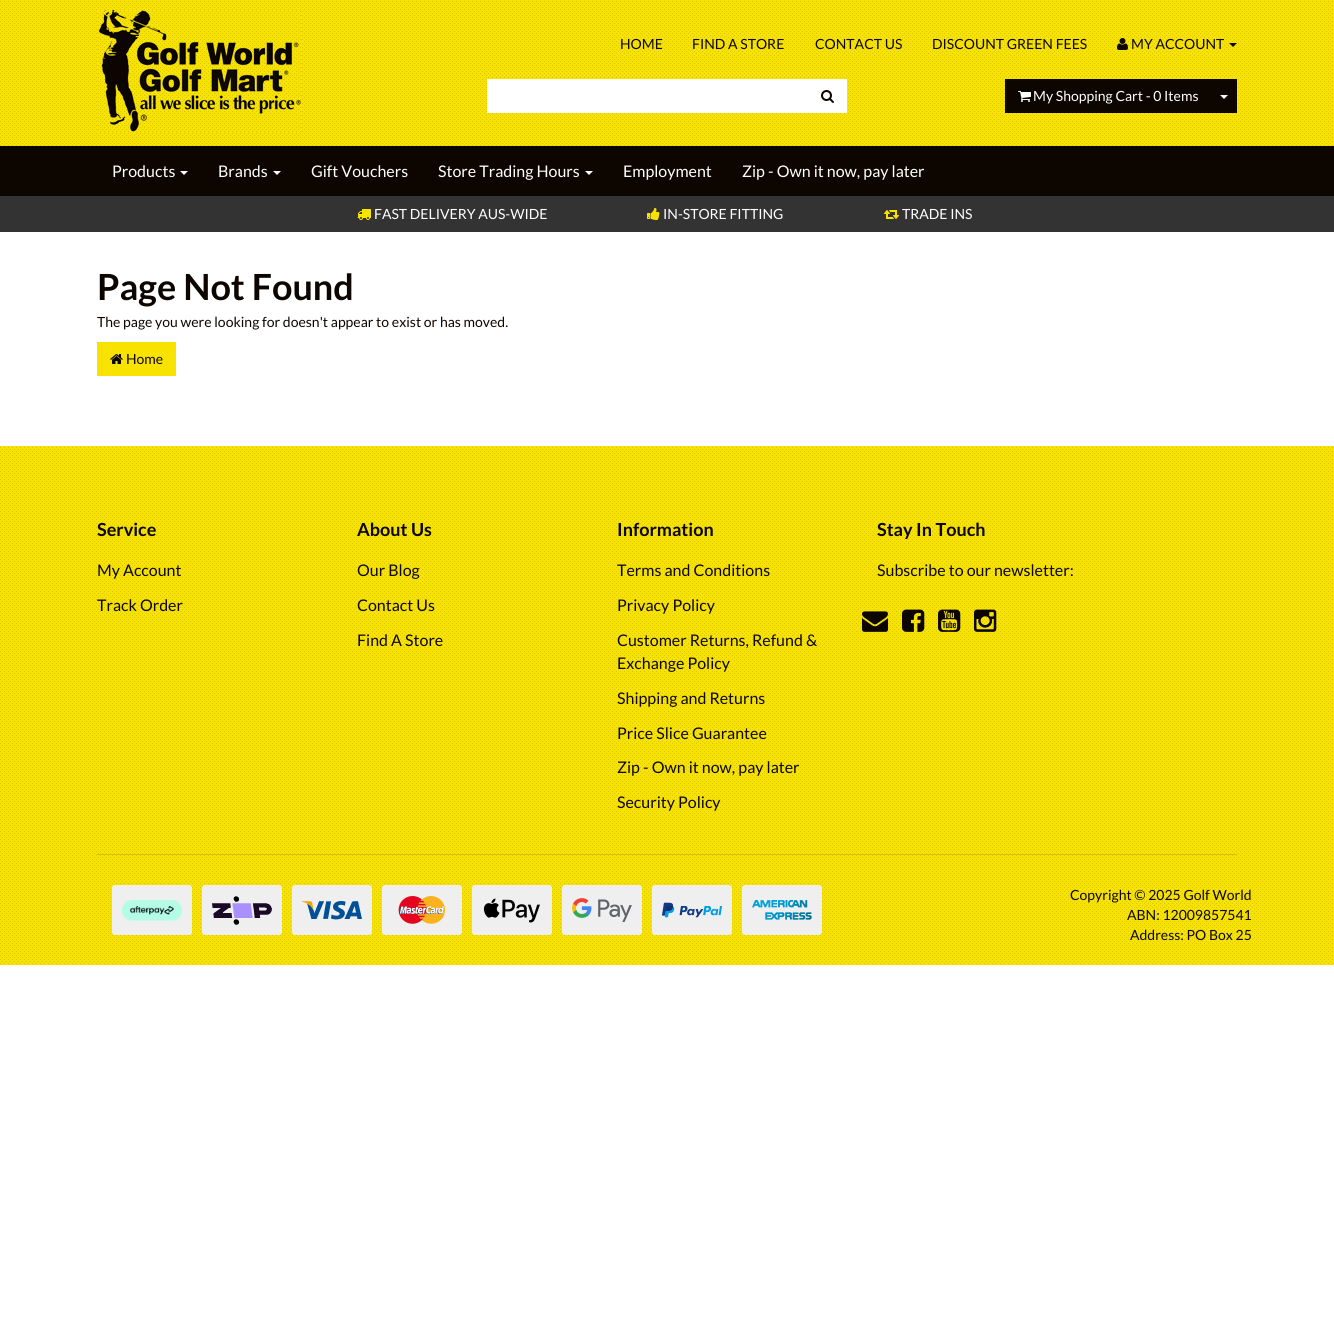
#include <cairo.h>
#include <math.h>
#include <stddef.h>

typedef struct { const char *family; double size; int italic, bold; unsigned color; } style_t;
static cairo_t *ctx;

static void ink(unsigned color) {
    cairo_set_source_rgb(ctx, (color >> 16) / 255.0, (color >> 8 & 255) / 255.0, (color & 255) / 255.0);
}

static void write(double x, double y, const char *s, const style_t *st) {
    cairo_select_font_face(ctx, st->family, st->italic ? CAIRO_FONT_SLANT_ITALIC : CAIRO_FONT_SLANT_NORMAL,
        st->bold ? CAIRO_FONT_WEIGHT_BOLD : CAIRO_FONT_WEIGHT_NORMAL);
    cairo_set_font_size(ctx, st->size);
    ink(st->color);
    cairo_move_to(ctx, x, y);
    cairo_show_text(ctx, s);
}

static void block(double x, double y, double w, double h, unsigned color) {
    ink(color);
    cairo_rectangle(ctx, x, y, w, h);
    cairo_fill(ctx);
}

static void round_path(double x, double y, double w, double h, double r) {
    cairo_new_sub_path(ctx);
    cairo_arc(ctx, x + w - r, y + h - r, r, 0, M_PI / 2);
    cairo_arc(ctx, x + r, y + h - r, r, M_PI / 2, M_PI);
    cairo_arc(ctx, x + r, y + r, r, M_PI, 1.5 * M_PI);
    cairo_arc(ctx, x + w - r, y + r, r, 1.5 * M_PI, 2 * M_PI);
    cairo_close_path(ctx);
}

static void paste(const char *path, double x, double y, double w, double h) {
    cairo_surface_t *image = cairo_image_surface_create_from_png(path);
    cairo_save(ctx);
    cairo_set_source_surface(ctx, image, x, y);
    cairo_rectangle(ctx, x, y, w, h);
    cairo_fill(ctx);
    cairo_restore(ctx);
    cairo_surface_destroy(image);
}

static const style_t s1 = {"Lato", 14, 0, 0, 0x0d0600};
static const style_t s2 = {"Lato", 14, 0, 0, 0xffffff};
static const style_t s3 = {"Lato", 16, 0, 0, 0xffffff};
static const style_t s4 = {"Lato", 36, 0, 1, 0x0d0600};
static const style_t s5 = {"Lato", 18, 0, 1, 0x0d0600};
static const style_t s6 = {"Lato", 16, 0, 0, 0x0d0600};

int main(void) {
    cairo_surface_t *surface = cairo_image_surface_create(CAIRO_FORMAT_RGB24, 1334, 1334);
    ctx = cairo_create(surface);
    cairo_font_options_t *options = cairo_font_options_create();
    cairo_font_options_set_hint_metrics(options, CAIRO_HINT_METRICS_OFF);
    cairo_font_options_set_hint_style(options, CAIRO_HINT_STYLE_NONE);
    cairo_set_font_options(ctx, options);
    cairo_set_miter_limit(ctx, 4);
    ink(0xffffff);
    cairo_paint(ctx);
    paste("pic1.png", 0, 0, 1334, 146);
    paste("pic2.png", 98, 10, 203, 122);
    write(620, 49, "HOME", &s1);
    write(692, 49, "FIND A STORE", &s1);
    write(815, 49, "CONTACT US", &s1);
    write(932, 49, "DISCOUNT GREEN FEES", &s1);
    paste("pic3.png", 1117, 38, 11, 12);
    write(1131, 49, "MY ACCOUNT", &s1);
    cairo_new_path(ctx);
    cairo_move_to(ctx, 1229, 43);
    cairo_line_to(ctx, 1237, 43);
    cairo_line_to(ctx, 1233, 47);
    cairo_close_path(ctx);
    cairo_fill(ctx);
    block(487, 79, 360, 34, 0xffffff);
    paste("pic4.png", 821, 90, 13, 13);
    block(1005, 79, 232, 34, 0x0d0600);
    paste("pic5.png", 1018, 91, 13, 11);
    write(1033, 101, "My Shopping Cart - 0 Items", &s2);
    cairo_new_path(ctx);
    cairo_move_to(ctx, 1220, 95);
    cairo_line_to(ctx, 1228, 95);
    cairo_line_to(ctx, 1224, 99);
    cairo_close_path(ctx);
    cairo_fill(ctx);
    block(0, 146, 1334, 50, 0x0d0600);
    write(112, 177, "Products", &s3);
    cairo_new_path(ctx);
    cairo_move_to(ctx, 180, 171);
    cairo_line_to(ctx, 188, 171);
    cairo_line_to(ctx, 184, 175);
    cairo_close_path(ctx);
    cairo_fill(ctx);
    write(218, 177, "Brands", &s3);
    cairo_new_path(ctx);
    cairo_move_to(ctx, 273, 171);
    cairo_line_to(ctx, 281, 171);
    cairo_line_to(ctx, 277, 175);
    cairo_close_path(ctx);
    cairo_fill(ctx);
    write(311, 177, "Gift Vouchers", &s3);
    write(438, 177, "Store Trading Hours", &s3);
    cairo_new_path(ctx);
    cairo_move_to(ctx, 585, 171);
    cairo_line_to(ctx, 593, 171);
    cairo_line_to(ctx, 589, 175);
    cairo_close_path(ctx);
    cairo_fill(ctx);
    write(623, 177, "Employment", &s3);
    write(742, 177, "Zip - Own it now, pay later", &s3);
    block(0, 196, 1334, 36, 0x333333);
    paste("pic6.png", 357, 209, 14, 11);
    write(374, 219, "FAST DELIVERY AUS-WIDE", &s2);
    paste("pic7.png", 647, 208, 13, 12);
    write(663, 219, "IN-STORE FITTING", &s2);
    paste("pic8.png", 884, 210, 15, 9);
    write(902, 219, "TRADE INS", &s2);
    write(97, 300, "Page Not Found", &s4);
    write(97, 327, "The page you were looking for doesn't appear to exist or has moved.", &s1);
    block(97, 342, 79, 34, 0xf8e300);
    paste("pic9.png", 110, 354, 13, 10);
    write(126, 364, "Home", &s1);
    paste("pic10.png", 0, 446, 1334, 519);
    write(97, 536, "Service", &s5);
    write(97, 576, "My Account", &s6);
    write(97, 611, "Track Order", &s6);
    write(357, 536, "About Us", &s5);
    write(357, 576, "Our Blog", &s6);
    write(357, 611, "Contact Us", &s6);
    write(357, 646, "Find A Store", &s6);
    write(617, 536, "Information", &s5);
    write(617, 576, "Terms and Conditions", &s6);
    write(617, 611, "Privacy Policy", &s6);
    write(617, 646, "Customer Returns, Refund &", &s6);
    write(617, 669, "Exchange Policy", &s6);
    write(617, 704, "Shipping and Returns", &s6);
    write(617, 739, "Price Slice Guarantee", &s6);
    write(617, 773, "Zip - Own it now, pay later", &s6);
    write(617, 808, "Security Policy", &s6);
    write(877, 536, "Stay In Touch", &s5);
    write(877, 576, "Subscribe to our newsletter:", &s6);
    paste("pic11.png", 862, 611, 26, 21);
    paste("pic12.png", 902, 609, 23, 23);
    paste("pic13.png", 938, 609, 23, 23);
    paste("pic14.png", 974, 609, 23, 23);
    block(97, 854, 1140, 1, 0xd4c30c);
    ink(0xefefef);
    round_path(112, 885, 80, 50, 3);
    cairo_fill(ctx);
    paste("pic15.png", 122, 899, 60, 22);
    round_path(202, 885, 80, 50, 3);
    cairo_fill(ctx);
    paste("pic16.png", 212, 896, 60, 29);
    round_path(292, 885, 80, 50, 3);
    cairo_fill(ctx);
    paste("pic17.png", 302, 901, 60, 19);
    round_path(382, 885, 80, 50, 3);
    cairo_fill(ctx);
    paste("pic18.png", 398, 896, 48, 28);
    round_path(472, 885, 80, 50, 3);
    cairo_fill(ctx);
    paste("pic19.png", 483, 898, 57, 25);
    round_path(562, 885, 80, 50, 3);
    cairo_fill(ctx);
    paste("pic20.png", 572, 898, 60, 24);
    round_path(652, 885, 80, 50, 3);
    cairo_fill(ctx);
    paste("pic21.png", 662, 902, 60, 16);
    round_path(742, 885, 80, 50, 3);
    cairo_fill(ctx);
    paste("pic22.png", 752, 900, 60, 20);
    write(1070, 900, "Copyright © 2025 Golf World", &s1);
    write(1127, 920, "ABN: 12009857541", &s1);
    write(1130, 940, "Address: PO Box 25", &s1);
    cairo_surface_write_to_png(surface, "screenshot.png");
    cairo_font_options_destroy(options);
    cairo_destroy(ctx);
    cairo_surface_destroy(surface);
    return 0;
}
